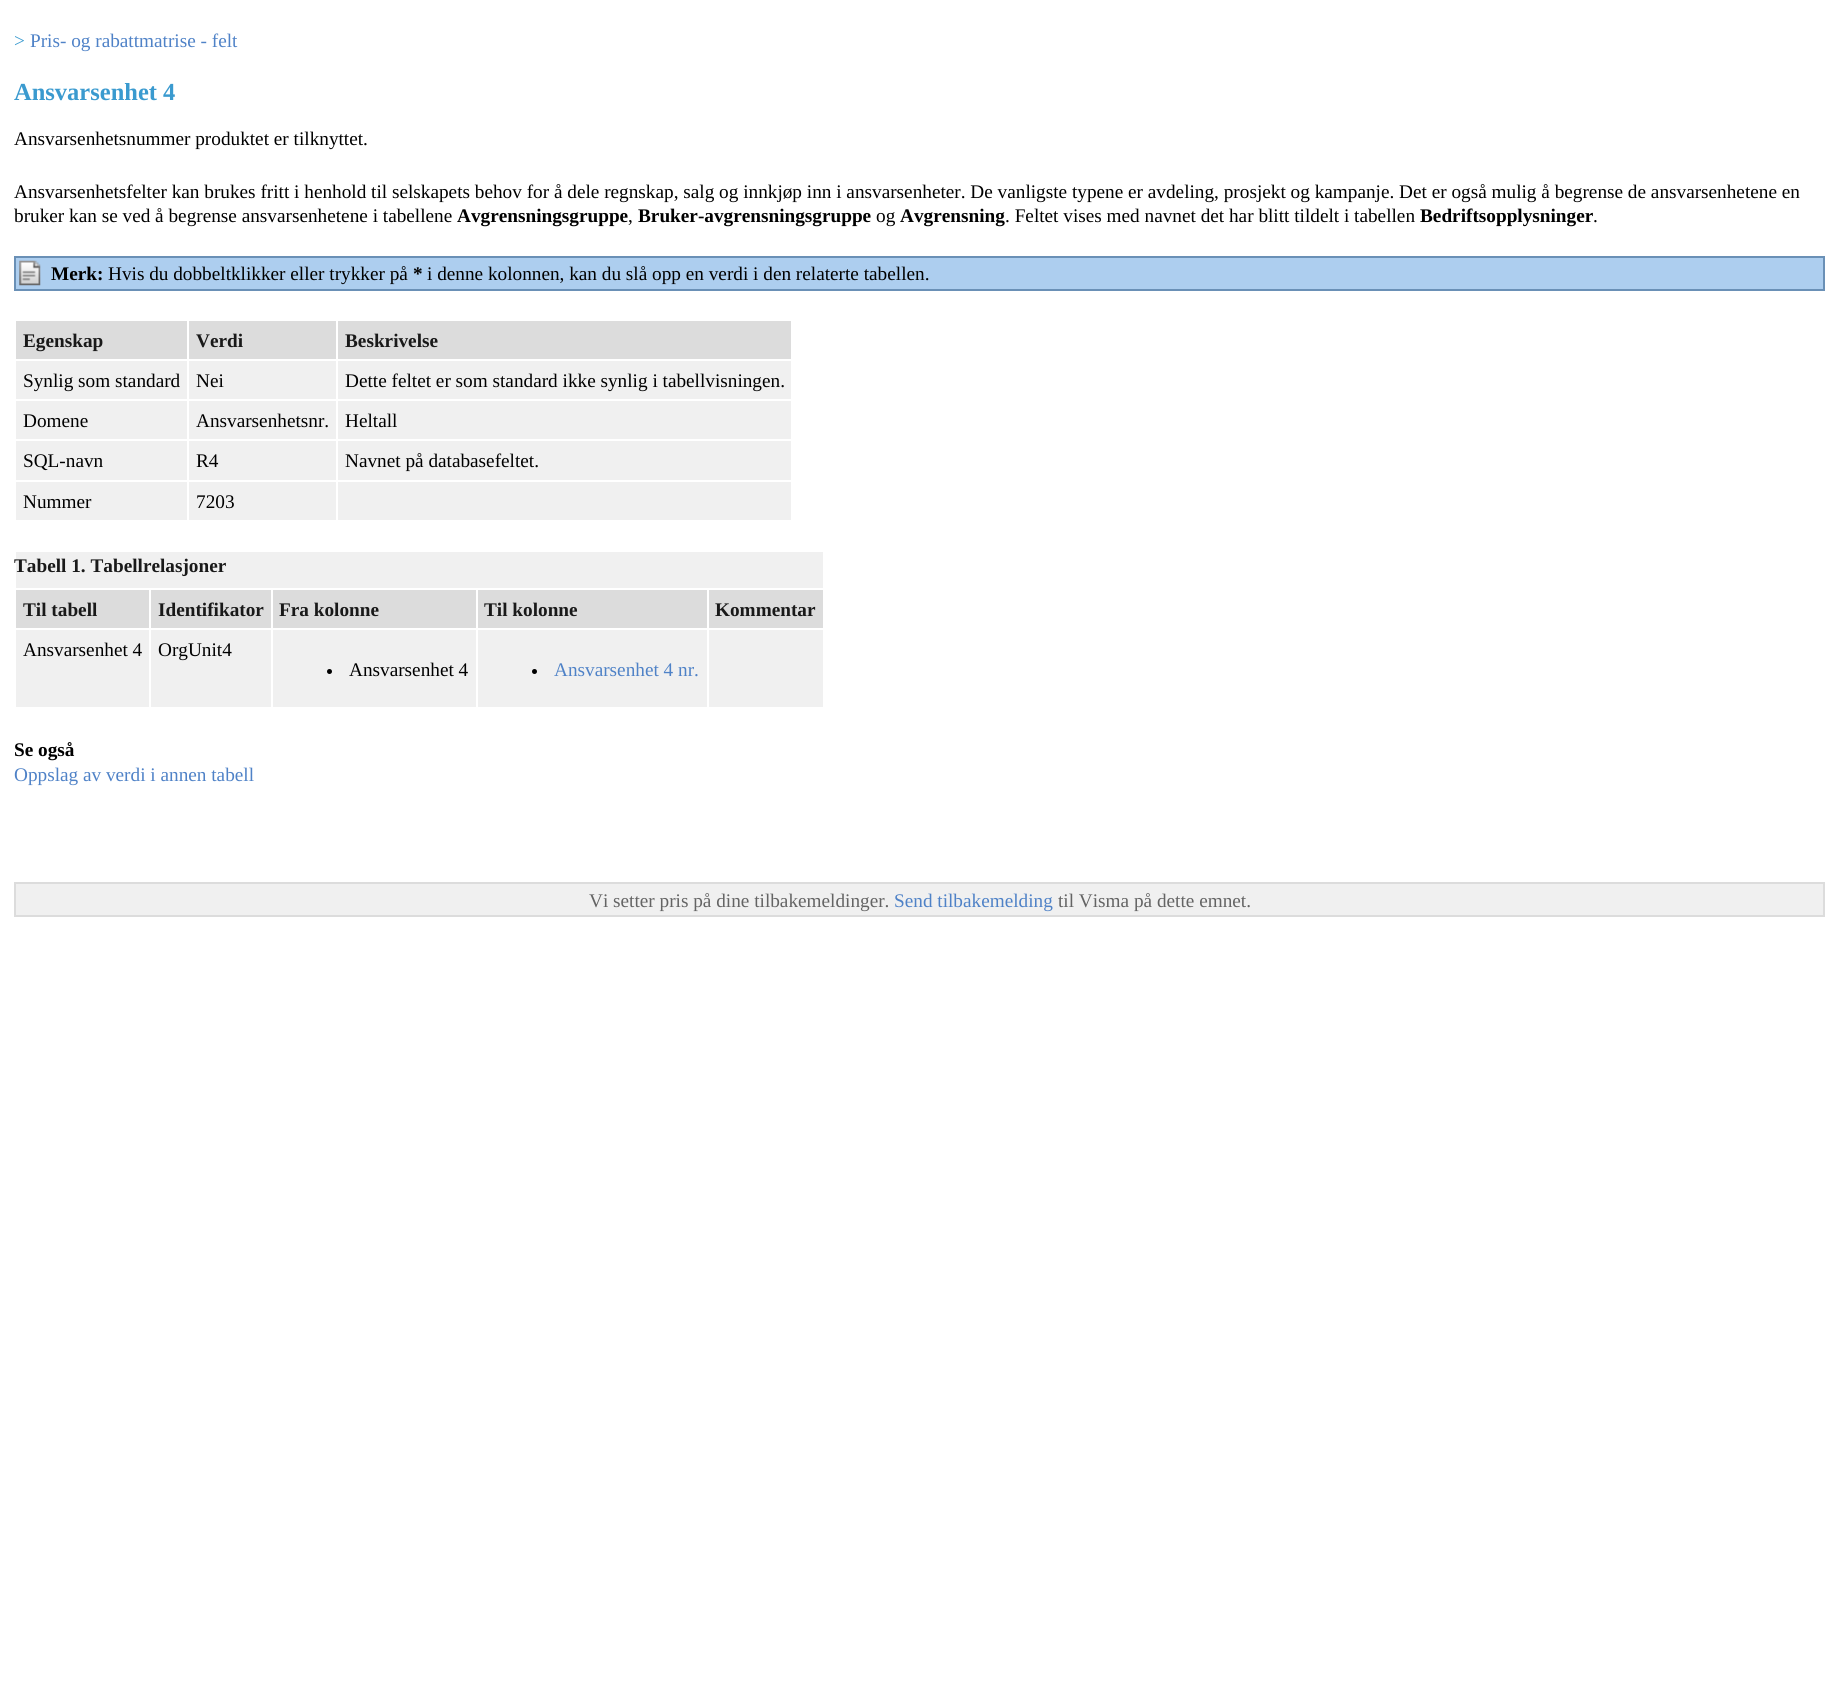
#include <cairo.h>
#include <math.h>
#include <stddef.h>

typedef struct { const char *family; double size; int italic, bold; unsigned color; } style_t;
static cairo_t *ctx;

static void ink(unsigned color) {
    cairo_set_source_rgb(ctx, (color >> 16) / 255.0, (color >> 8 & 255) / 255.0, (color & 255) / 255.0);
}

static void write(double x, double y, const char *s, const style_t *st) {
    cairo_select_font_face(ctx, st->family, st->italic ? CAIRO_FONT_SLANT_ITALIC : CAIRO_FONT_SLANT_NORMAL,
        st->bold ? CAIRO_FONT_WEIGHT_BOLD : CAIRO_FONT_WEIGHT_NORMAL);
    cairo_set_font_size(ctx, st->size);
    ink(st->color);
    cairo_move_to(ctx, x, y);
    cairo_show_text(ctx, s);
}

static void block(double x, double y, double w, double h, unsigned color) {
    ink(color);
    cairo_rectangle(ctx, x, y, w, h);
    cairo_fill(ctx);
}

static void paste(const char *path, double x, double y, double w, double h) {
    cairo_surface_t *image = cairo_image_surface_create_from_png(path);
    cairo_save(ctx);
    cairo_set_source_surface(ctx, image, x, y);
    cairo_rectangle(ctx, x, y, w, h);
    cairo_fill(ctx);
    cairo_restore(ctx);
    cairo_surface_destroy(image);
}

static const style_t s1 = {"Liberation Serif", 19.25, 0, 0, 0x3a9acf};
static const style_t s2 = {"Liberation Serif", 19.25, 0, 0, 0x4f82c7};
static const style_t s3 = {"Liberation Serif", 24.5, 0, 1, 0x3a9acf};
static const style_t s4 = {"Liberation Serif", 19.25, 0, 0, 0x000000};
static const style_t s5 = {"Liberation Serif", 19.25, 0, 1, 0x000000};
static const style_t s6 = {"Liberation Serif", 19.25, 0, 1, 0x191919};
static const style_t s7 = {"Liberation Serif", 19.25, 0, 0, 0x646464};

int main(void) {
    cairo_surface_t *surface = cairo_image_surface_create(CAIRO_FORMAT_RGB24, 1839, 1695);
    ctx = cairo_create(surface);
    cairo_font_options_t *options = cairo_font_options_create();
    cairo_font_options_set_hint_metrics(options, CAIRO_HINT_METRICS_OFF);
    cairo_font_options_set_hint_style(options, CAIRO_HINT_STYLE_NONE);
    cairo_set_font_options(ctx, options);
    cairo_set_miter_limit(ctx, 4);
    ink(0xffffff);
    cairo_paint(ctx);
    write(14, 47, ">", &s1);
    write(30, 47, "Pris- og rabattmatrise - felt", &s2);
    write(14, 100, "Ansvarsenhet 4", &s3);
    write(14, 145, "Ansvarsenhetsnummer produktet er tilknyttet.", &s4);
    write(14, 198, "Ansvarsenhetsfelter kan brukes fritt i henhold til selskapets behov for å dele regnskap, salg og innkjøp inn i ansvarsenheter. De vanligste typene er avdeling, prosjekt og kampanje. Det er også mulig å begrense de ansvarsenhetene en", &s4);
    write(14, 222, "bruker kan se ved å begrense ansvarsenhetene i tabellene", &s4);
    write(457, 222, "Avgrensningsgruppe", &s5);
    write(628, 222, ",", &s4);
    write(638, 222, "Bruker-avgrensningsgruppe", &s5);
    write(876, 222, "og", &s4);
    write(900, 222, "Avgrensning", &s5);
    write(1005, 222, ". Feltet vises med navnet det har blitt tildelt i tabellen", &s4);
    write(1420, 222, "Bedriftsopplysninger", &s5);
    write(1593, 222, ".", &s4);
    block(16, 258, 1807, 31, 0xadceef);
    paste("pic1.png", 19, 260, 22, 26);
    cairo_rectangle(ctx, 15, 257, 1809, 33);
    ink(0x6a90b6);
    cairo_stroke(ctx);
    write(51, 280, "Merk:", &s5);
    write(108, 280, "Hvis du dobbeltklikker eller trykker på", &s4);
    write(413, 280, "*", &s5);
    write(427, 280, "i denne kolonnen, kan du slå opp en verdi i den relaterte tabellen.", &s4);
    block(16, 361, 775, 159, 0xf0f0f0);
    block(16, 321, 171, 38, 0xdcdcdc);
    write(23, 347, "Egenskap", &s6);
    block(189, 321, 147, 38, 0xdcdcdc);
    write(196, 347, "Verdi", &s6);
    block(338, 321, 453, 38, 0xdcdcdc);
    write(345, 347, "Beskrivelse", &s6);
    write(23, 387, "Synlig som standard", &s4);
    block(336, 399, 457, 2, 0xffffff);
    block(336, 439, 457, 2, 0xffffff);
    block(336, 480, 457, 2, 0xffffff);
    block(336, 480, 2, 42, 0xffffff);
    block(187, 480, 151, 2, 0xffffff);
    block(336, 439, 2, 42, 0xffffff);
    block(187, 439, 151, 2, 0xffffff);
    block(336, 399, 2, 42, 0xffffff);
    block(187, 399, 151, 2, 0xffffff);
    block(187, 480, 2, 42, 0xffffff);
    block(14, 480, 175, 2, 0xffffff);
    block(187, 439, 2, 42, 0xffffff);
    block(14, 439, 175, 2, 0xffffff);
    block(187, 399, 2, 42, 0xffffff);
    block(14, 399, 175, 2, 0xffffff);
    block(187, 359, 2, 42, 0xffffff);
    write(196, 387, "Nei", &s4);
    block(336, 359, 2, 42, 0xffffff);
    write(345, 387, "Dette feltet er som standard ikke synlig i tabellvisningen.", &s4);
    write(23, 427, "Domene", &s4);
    write(196, 427, "Ansvarsenhetsnr.", &s4);
    write(345, 427, "Heltall", &s4);
    write(23, 467, "SQL-navn", &s4);
    write(196, 467, "R4", &s4);
    write(345, 467, "Navnet på databasefeltet.", &s4);
    write(23, 508, "Nummer", &s4);
    write(196, 508, "7203", &s4);
    block(16, 552, 807, 155, 0xf0f0f0);
    write(14, 572, "Tabell 1. Tabellrelasjoner", &s6);
    block(16, 590, 133, 38, 0xdcdcdc);
    block(707, 588, 117, 2, 0xffffff);
    block(707, 628, 117, 2, 0xffffff);
    block(707, 628, 2, 81, 0xffffff);
    block(476, 628, 233, 2, 0xffffff);
    block(707, 588, 2, 42, 0xffffff);
    block(476, 588, 233, 2, 0xffffff);
    block(476, 628, 2, 81, 0xffffff);
    block(271, 628, 207, 2, 0xffffff);
    block(476, 588, 2, 42, 0xffffff);
    block(271, 588, 207, 2, 0xffffff);
    block(271, 628, 2, 81, 0xffffff);
    block(149, 628, 124, 2, 0xffffff);
    block(271, 588, 2, 42, 0xffffff);
    block(149, 588, 124, 2, 0xffffff);
    block(149, 628, 2, 81, 0xffffff);
    block(14, 628, 137, 2, 0xffffff);
    block(149, 588, 2, 42, 0xffffff);
    block(14, 588, 137, 2, 0xffffff);
    write(23, 616, "Til tabell", &s6);
    block(151, 590, 120, 38, 0xdcdcdc);
    write(158, 616, "Identifikator", &s6);
    block(273, 590, 203, 38, 0xdcdcdc);
    write(279, 616, "Fra kolonne", &s6);
    block(478, 590, 229, 38, 0xdcdcdc);
    write(484, 616, "Til kolonne", &s6);
    block(709, 590, 114, 38, 0xdcdcdc);
    write(715, 616, "Kommentar", &s6);
    write(23, 656, "Ansvarsenhet 4", &s4);
    write(158, 656, "OrgUnit4", &s4);
    cairo_new_path(ctx);
    cairo_arc(ctx, 329.5, 671.5, 2.5, 0, 2 * M_PI);
    cairo_fill(ctx);
    write(349, 676, "Ansvarsenhet 4", &s4);
    cairo_new_path(ctx);
    cairo_arc(ctx, 534.5, 671.5, 2.5, 0, 2 * M_PI);
    cairo_fill(ctx);
    write(554, 676, "Ansvarsenhet 4 nr.", &s2);
    write(14, 756, "Se også", &s5);
    write(14, 781, "Oppslag av verdi i annen tabell", &s2);
    ink(0xf0f0f0);
    cairo_rectangle(ctx, 15, 883, 1809, 33);
    cairo_fill_preserve(ctx);
    ink(0xdcdcdc);
    cairo_stroke(ctx);
    write(589, 907, "Vi setter pris på dine tilbakemeldinger.", &s7);
    write(894, 907, "Send tilbakemelding", &s2);
    write(1058, 907, "til Visma på dette emnet.", &s7);
    cairo_surface_write_to_png(surface, "screenshot.png");
    cairo_font_options_destroy(options);
    cairo_destroy(ctx);
    cairo_surface_destroy(surface);
    return 0;
}
